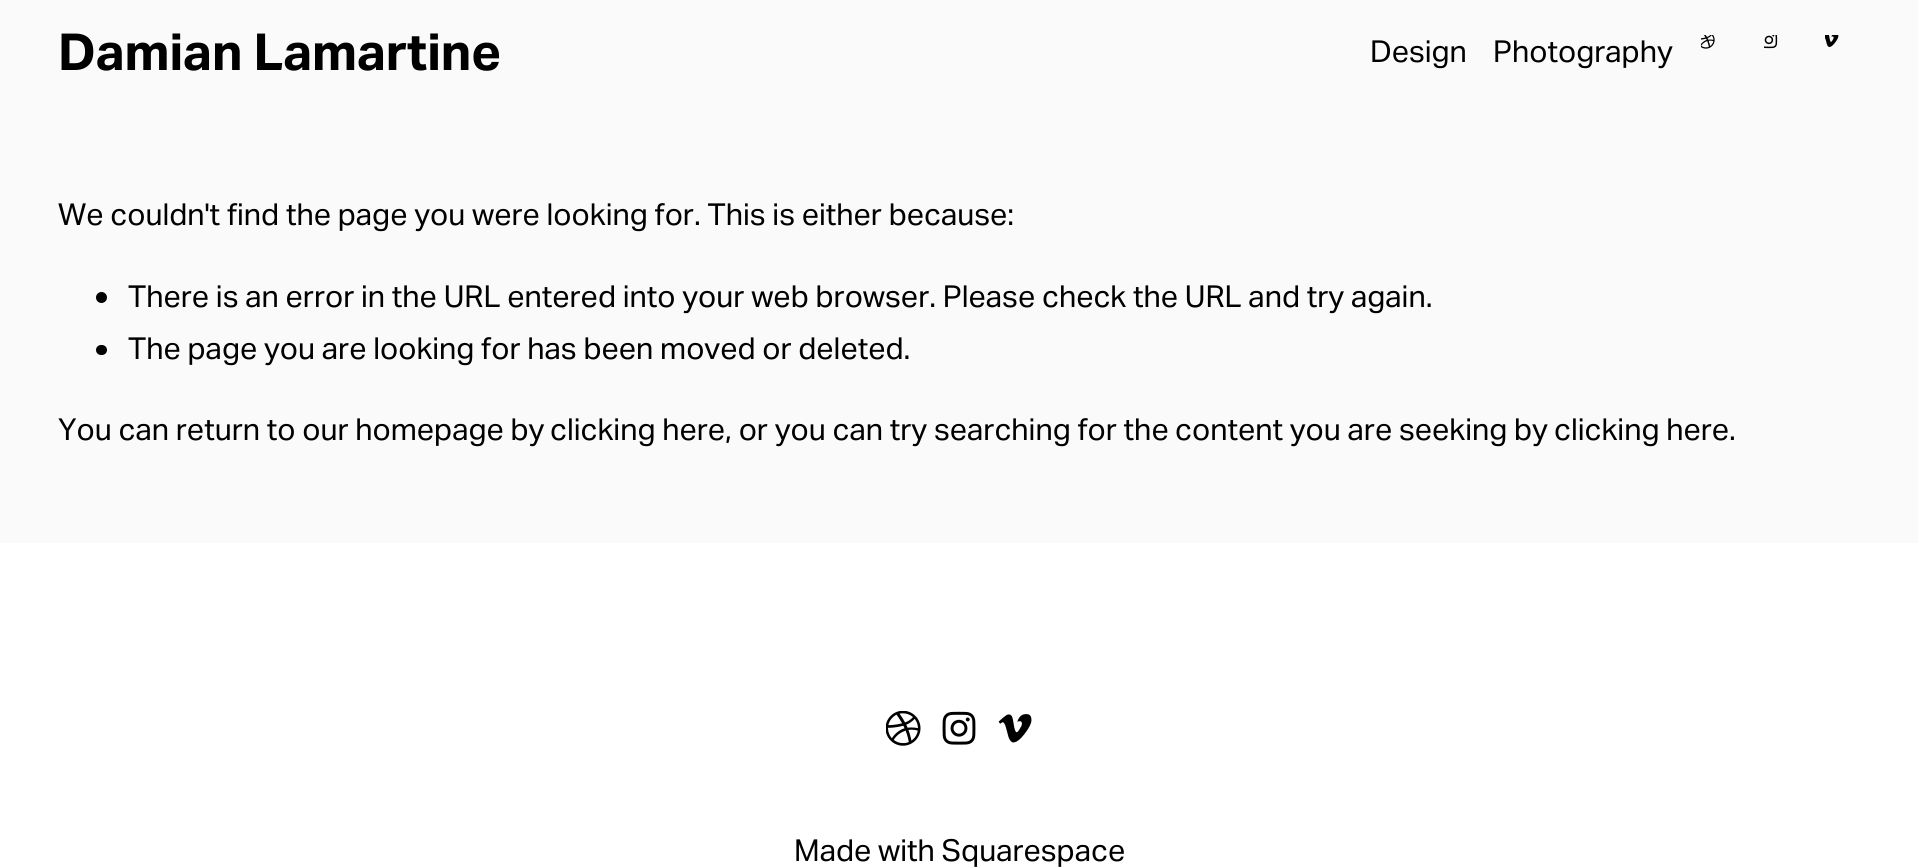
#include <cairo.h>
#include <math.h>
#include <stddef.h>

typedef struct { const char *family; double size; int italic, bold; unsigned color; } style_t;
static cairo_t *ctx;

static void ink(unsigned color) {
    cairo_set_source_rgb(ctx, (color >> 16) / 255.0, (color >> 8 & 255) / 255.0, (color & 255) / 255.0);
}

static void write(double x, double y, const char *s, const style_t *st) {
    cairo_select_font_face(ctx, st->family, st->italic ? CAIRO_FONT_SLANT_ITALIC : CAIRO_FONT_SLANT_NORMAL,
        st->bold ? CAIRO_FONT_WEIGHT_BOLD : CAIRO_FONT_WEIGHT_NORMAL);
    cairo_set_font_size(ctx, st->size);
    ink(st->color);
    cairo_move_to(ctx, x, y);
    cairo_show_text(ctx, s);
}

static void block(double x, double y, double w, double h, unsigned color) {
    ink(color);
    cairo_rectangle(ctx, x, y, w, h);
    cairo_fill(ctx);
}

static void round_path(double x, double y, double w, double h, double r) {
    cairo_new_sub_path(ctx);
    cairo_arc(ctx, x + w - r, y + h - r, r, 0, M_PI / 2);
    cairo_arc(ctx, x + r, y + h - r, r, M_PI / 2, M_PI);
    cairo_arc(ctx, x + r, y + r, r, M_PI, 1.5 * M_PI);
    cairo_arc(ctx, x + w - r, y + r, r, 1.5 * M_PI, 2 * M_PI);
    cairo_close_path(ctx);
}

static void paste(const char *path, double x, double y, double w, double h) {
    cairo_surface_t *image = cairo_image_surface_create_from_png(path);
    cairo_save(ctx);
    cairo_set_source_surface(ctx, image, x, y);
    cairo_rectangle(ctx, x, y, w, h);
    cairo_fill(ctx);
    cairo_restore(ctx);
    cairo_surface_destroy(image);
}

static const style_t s1 = {"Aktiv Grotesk", 51, 0, 1, 0x000000};
static const style_t s2 = {"Aktiv Grotesk", 30.3, 0, 0, 0x000000};

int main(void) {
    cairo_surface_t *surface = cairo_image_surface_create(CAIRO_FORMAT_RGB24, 1918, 868);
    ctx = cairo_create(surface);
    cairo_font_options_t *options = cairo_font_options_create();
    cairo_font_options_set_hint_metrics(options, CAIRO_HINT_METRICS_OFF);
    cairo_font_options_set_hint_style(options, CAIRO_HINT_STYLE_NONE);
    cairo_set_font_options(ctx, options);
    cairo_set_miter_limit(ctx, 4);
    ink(0xfafafa);
    cairo_paint(ctx);
    write(58, 70, "Damian Lamartine", &s1);
    write(1370, 62, "Design", &s2);
    write(1493, 62, "Photography", &s2);
    paste("pic1.png", 1701, 35, 14, 14);
    paste("pic2.png", 1764, 35, 14, 14);
    paste("pic3.png", 1825, 35, 14, 12);
    write(58, 225, "We couldn't find the page you were looking for. This is either because:", &s2);
    cairo_new_path(ctx);
    cairo_arc(ctx, 101.5, 297.5, 5.5, 0, 2 * M_PI);
    cairo_fill(ctx);
    write(128, 307, "There is an error in the URL entered into your web browser. Please check the URL and try again.", &s2);
    round_path(96, 345, 11, 10, 5);
    cairo_fill(ctx);
    write(128, 359, "The page you are looking for has been moved or deleted.", &s2);
    write(58, 440, "You can return to our homepage by", &s2);
    write(550, 440, "clicking here, or you can try searching for the", &s2);
    write(1175, 440, "content you are seeking by", &s2);
    write(1554, 440, "clicking here.", &s2);
    block(0, 543, 1918, 325, 0xffffff);
    paste("pic4.png", 886, 711, 35, 35);
    paste("pic5.png", 942, 711, 34, 34);
    paste("pic6.png", 998, 714, 34, 29);
    write(794, 861, "Made with Squarespace", &s2);
    cairo_surface_write_to_png(surface, "screenshot.png");
    cairo_font_options_destroy(options);
    cairo_destroy(ctx);
    cairo_surface_destroy(surface);
    return 0;
}
